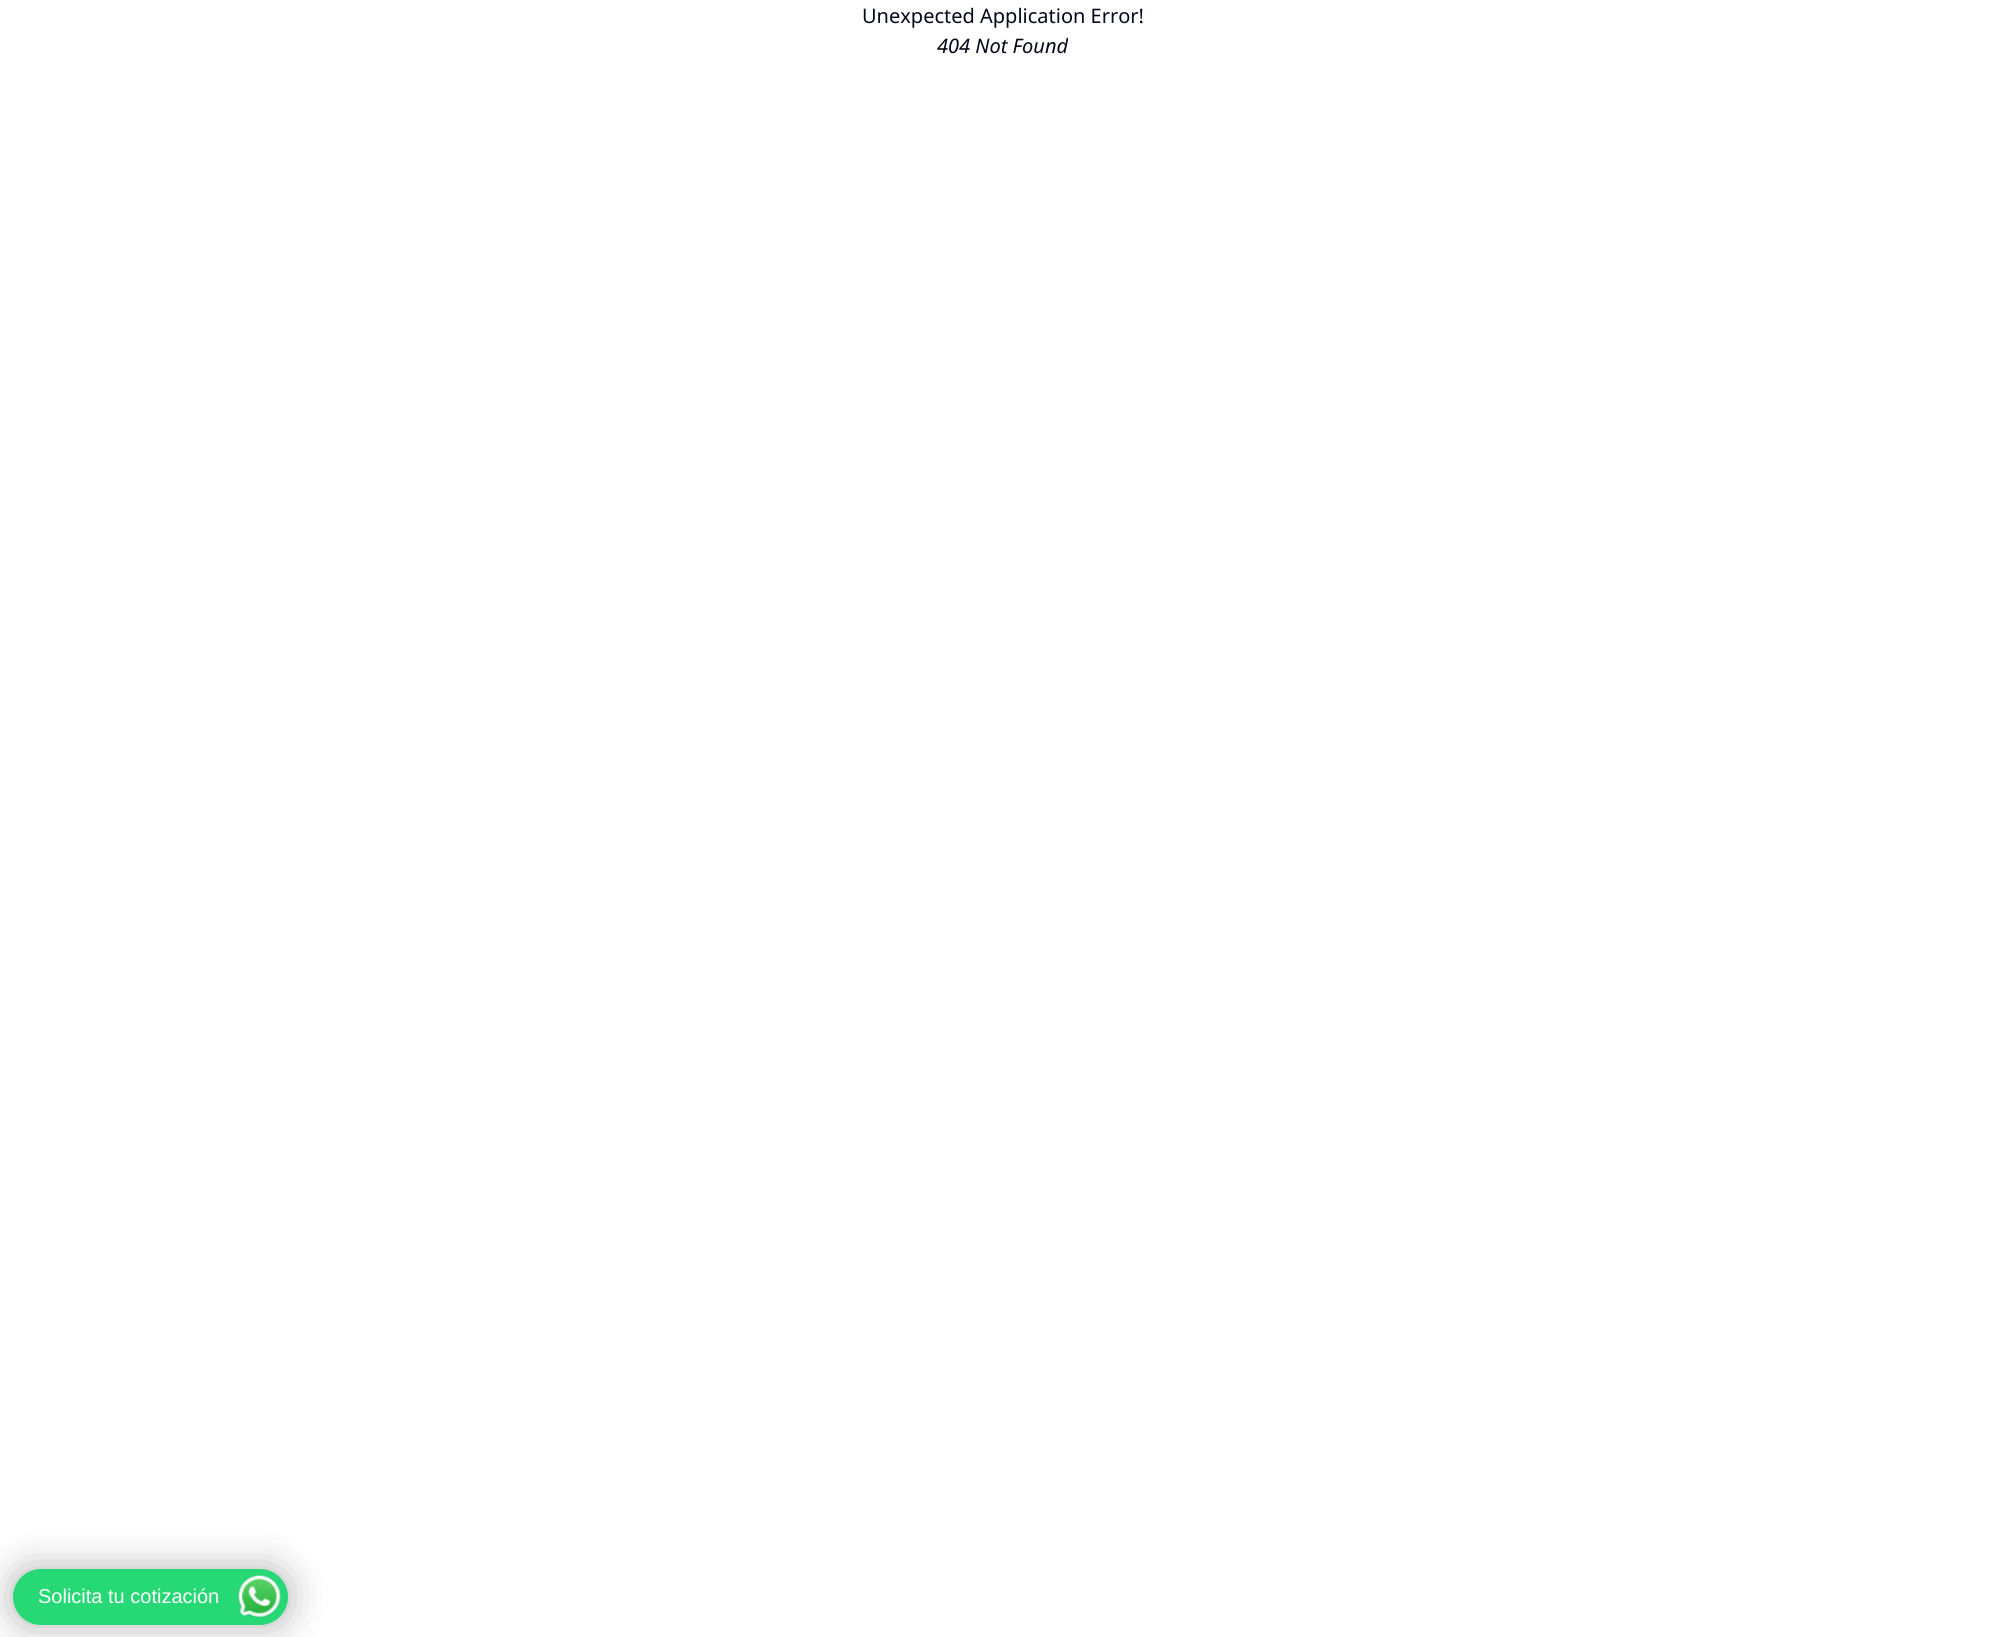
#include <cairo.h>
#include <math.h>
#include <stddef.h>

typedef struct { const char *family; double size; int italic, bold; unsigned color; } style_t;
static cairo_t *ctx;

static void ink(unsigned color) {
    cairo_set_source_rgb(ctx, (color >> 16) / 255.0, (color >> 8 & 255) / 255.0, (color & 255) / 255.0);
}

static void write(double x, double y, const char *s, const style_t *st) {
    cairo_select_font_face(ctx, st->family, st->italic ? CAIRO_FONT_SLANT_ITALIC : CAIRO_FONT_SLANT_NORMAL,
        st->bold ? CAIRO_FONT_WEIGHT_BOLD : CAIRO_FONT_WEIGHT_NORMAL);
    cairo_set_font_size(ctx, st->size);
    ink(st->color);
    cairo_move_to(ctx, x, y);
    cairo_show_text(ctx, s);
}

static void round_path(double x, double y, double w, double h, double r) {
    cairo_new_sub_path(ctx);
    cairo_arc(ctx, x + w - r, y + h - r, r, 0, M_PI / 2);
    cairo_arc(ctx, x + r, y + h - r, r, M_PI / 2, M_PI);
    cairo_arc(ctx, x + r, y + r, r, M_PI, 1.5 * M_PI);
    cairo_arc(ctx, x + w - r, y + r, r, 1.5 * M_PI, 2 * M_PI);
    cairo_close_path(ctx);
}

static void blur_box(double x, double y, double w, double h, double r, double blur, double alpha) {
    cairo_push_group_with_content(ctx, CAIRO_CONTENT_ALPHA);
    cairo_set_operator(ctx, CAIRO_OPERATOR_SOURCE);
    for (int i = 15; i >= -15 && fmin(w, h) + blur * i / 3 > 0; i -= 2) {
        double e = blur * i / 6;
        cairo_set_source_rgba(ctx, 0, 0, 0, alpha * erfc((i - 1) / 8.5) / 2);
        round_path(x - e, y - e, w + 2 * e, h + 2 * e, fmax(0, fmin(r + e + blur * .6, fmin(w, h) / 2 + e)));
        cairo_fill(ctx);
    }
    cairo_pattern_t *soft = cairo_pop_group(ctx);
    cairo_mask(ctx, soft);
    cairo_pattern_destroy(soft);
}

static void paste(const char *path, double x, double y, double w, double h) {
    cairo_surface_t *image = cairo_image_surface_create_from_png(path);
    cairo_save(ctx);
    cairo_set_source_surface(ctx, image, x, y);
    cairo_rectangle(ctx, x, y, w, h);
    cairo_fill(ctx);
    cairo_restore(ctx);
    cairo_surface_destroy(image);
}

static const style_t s1 = {"Noto Sans", 20, 0, 0, 0x020817};
static const style_t s2 = {"Noto Sans", 20, 1, 0, 0x020817};
static const style_t s3 = {"Liberation Sans", 20, 0, 0, 0xffffff};

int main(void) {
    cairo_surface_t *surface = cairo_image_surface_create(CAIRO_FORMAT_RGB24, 2004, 1637);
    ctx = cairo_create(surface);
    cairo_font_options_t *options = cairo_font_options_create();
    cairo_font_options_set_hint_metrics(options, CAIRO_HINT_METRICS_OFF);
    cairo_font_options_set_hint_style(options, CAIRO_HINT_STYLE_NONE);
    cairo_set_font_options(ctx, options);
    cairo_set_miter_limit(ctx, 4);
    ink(0xffffff);
    cairo_paint(ctx);
    write(862, 23, "Unexpected Application Error!", &s1);
    write(937, 53, "404 Not Found", &s2);
    ink(0x000000);
    blur_box(13, 1569, 275, 56, 28, 19, 0.3);
    ink(0x27d974);
    round_path(13, 1569, 275, 56, 28);
    cairo_fill(ctx);
    write(38, 1603, "Solicita tu cotización", &s3);
    paste("pic1.png", 238, 1575, 43, 43);
    cairo_surface_write_to_png(surface, "screenshot.png");
    cairo_font_options_destroy(options);
    cairo_destroy(ctx);
    cairo_surface_destroy(surface);
    return 0;
}
